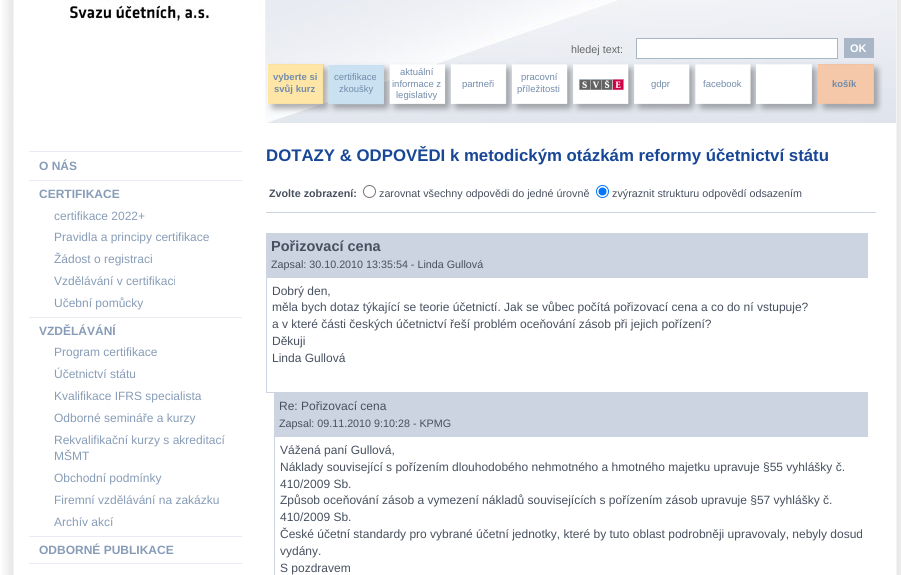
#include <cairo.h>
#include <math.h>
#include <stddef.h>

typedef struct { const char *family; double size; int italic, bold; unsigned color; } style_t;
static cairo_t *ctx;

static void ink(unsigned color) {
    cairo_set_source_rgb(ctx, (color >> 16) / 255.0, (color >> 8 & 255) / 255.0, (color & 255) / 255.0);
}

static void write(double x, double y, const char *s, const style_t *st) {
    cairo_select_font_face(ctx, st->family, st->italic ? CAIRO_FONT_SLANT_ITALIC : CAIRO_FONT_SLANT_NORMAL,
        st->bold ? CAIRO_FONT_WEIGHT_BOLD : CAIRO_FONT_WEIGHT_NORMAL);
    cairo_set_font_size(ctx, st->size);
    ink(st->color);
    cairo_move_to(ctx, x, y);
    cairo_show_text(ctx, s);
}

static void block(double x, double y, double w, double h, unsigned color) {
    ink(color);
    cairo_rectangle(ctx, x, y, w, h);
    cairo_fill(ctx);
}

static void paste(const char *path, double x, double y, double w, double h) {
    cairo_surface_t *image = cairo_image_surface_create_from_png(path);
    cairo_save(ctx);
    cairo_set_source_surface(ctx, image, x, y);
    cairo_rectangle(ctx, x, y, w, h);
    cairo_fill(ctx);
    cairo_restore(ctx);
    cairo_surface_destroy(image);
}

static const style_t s1 = {"Liberation Sans", 10.75, 0, 0, 0x666666};
static const style_t s2 = {"Liberation Sans", 11, 0, 1, 0xffffff};
static const style_t s3 = {"Liberation Sans", 9.5, 0, 1, 0x738cab};
static const style_t s4 = {"Liberation Sans", 9.5, 0, 0, 0x738cab};
static const style_t s5 = {"Liberation Sans", 12, 0, 1, 0x879cb7};
static const style_t s6 = {"Liberation Sans", 12, 0, 0, 0x879cb7};
static const style_t s7 = {"Liberation Sans", 16.8, 0, 1, 0x174796};
static const style_t s8 = {"Liberation Sans", 10.75, 0, 1, 0x47505f};
static const style_t s9 = {"Liberation Sans", 10.75, 0, 0, 0x47505f};
static const style_t s10 = {"Liberation Sans", 14.5, 0, 1, 0x47505f};
static const style_t s11 = {"Liberation Sans", 12, 0, 0, 0x47505f};

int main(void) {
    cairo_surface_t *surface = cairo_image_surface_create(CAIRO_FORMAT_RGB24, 901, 575);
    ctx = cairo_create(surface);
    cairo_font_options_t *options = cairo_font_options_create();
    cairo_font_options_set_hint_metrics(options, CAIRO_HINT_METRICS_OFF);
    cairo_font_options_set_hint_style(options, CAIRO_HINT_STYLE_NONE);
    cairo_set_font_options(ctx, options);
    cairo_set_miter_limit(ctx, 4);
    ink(0xffffff);
    cairo_paint(ctx);
    paste("pic1.png", 2, 0, 899, 575);
    paste("pic2.png", 70, 0, 826, 123);
    write(571, 53, "hledej text:", &s1);
    ink(0xffffff);
    cairo_rectangle(ctx, 636.5, 38.5, 201, 20);
    cairo_fill_preserve(ctx);
    ink(0xa8b6c8);
    cairo_set_line_width(ctx, 1);
    cairo_stroke(ctx);
    block(844, 38, 30, 20, 0xa8b6c8);
    write(850, 52, "OK", &s2);
    paste("pic3.png", 266, 59, 617, 55);
    write(273, 80, "vyberte si", &s3);
    write(274, 92, "svůj kurz", &s3);
    write(334, 80, "certifikace", &s4);
    write(339, 92, "zkoušky", &s4);
    write(400, 75, "aktuální", &s4);
    write(392, 87, "informace z", &s4);
    write(396, 98, "legislativy", &s4);
    write(462, 87, "partneři", &s4);
    write(521, 80, "pracovní", &s4);
    write(517, 92, "příležitosti", &s4);
    paste("pic4.png", 579, 79, 45, 11);
    write(651, 87, "gdpr", &s4);
    write(703, 87, "facebook", &s4);
    write(832, 87, "košík", &s3);
    block(29, 151, 213, 1, 0xe8ebf1);
    block(29, 180, 213, 1, 0xe8ebf1);
    write(39, 170, "O NÁS", &s5);
    block(29, 317, 213, 1, 0xe8ebf1);
    write(39, 198, "CERTIFIKACE", &s5);
    write(54, 220, "certifikace 2022+", &s6);
    write(54, 241, "Pravidla a principy certifikace", &s6);
    write(54, 263, "Žádost o registraci", &s6);
    write(54, 285, "Vzdělávání v certifikaci", &s6);
    write(54, 307, "Učební pomůcky", &s6);
    block(29, 536, 213, 1, 0xe8ebf1);
    write(39, 335, "VZDĚLÁVÁNÍ", &s5);
    write(54, 356, "Program certifikace", &s6);
    write(54, 378, "Účetnictví státu", &s6);
    write(54, 400, "Kvalifikace IFRS specialista", &s6);
    write(54, 422, "Odborné semináře a kurzy", &s6);
    write(54, 444, "Rekvalifikační kurzy s akreditací", &s6);
    write(54, 460, "MŠMT", &s6);
    write(54, 482, "Obchodní podmínky", &s6);
    write(54, 504, "Firemní vzdělávání na zakázku", &s6);
    write(54, 526, "Archív akcí", &s6);
    block(29, 563, 213, 1, 0xe8ebf1);
    write(39, 554, "ODBORNÉ PUBLIKACE", &s5);
    write(266, 161, "DOTAZY & ODPOVĚDI k metodickým otázkám reformy účetnictví státu", &s7);
    write(269, 197, "Zvolte zobrazení:", &s8);
    cairo_new_path(ctx);
    cairo_arc(ctx, 369.5, 191.5, 6, 0, 2 * M_PI);
    ink(0x767676);
    cairo_stroke(ctx);
    write(379, 197, "zarovnat všechny odpovědi do jedné úrovně", &s9);
    cairo_new_path(ctx);
    cairo_arc(ctx, 602.5, 191.5, 6, 0, 2 * M_PI);
    ink(0x0075ff);
    cairo_stroke(ctx);
    cairo_arc(ctx, 602.5, 191.5, 4, 0, 2 * M_PI);
    cairo_fill(ctx);
    write(612, 197, "zvýraznit strukturu odpovědí odsazením", &s9);
    block(266, 212, 610, 1, 0xcbd4e0);
    block(266, 233, 602, 45, 0xcbd4e0);
    write(271, 251, "Pořizovací cena", &s10);
    write(271, 268, "Zapsal: 30.10.2010 13:35:54 - Linda Gullová", &s9);
    block(266, 278, 1, 91, 0xcbd4e0);
    write(272, 295, "Dobrý den,", &s11);
    write(272, 311, "měla bych dotaz týkající se teorie účetnictí. Jak se vůbec počítá pořizovací cena a co do ní vstupuje?", &s11);
    write(272, 328, "a v které části českých účetnictví řeší problém oceňování zásob při jejich pořízení?", &s11);
    write(272, 345, "Děkuji", &s11);
    write(272, 362, "Linda Gullová", &s11);
    block(266, 392, 602, 1, 0xcbd4e0);
    block(266, 369, 1, 24, 0xcbd4e0);
    block(274, 393, 594, 44, 0xcbd4e0);
    write(279, 410, "Re: Pořizovací cena", &s11);
    write(279, 427, "Zapsal: 09.11.2010 9:10:28 - KPMG", &s9);
    block(274, 437, 1, 138, 0xcbd4e0);
    write(280, 454, "Vážená paní Gullová,", &s11);
    write(280, 471, "Náklady související s pořízením dlouhodobého nehmotného a hmotného majetku upravuje §55 vyhlášky č.", &s11);
    write(280, 488, "410/2009 Sb.", &s11);
    write(280, 504, "Způsob oceňování zásob a vymezení nákladů souvisejících s pořízením zásob upravuje §57 vyhlášky č.", &s11);
    write(280, 521, "410/2009 Sb.", &s11);
    write(280, 538, "České účetní standardy pro vybrané účetní jednotky, které by tuto oblast podrobněji upravovaly, nebyly dosud", &s11);
    write(280, 555, "vydány.", &s11);
    write(280, 572, "S pozdravem", &s11);
    cairo_surface_write_to_png(surface, "screenshot.png");
    cairo_font_options_destroy(options);
    cairo_destroy(ctx);
    cairo_surface_destroy(surface);
    return 0;
}
